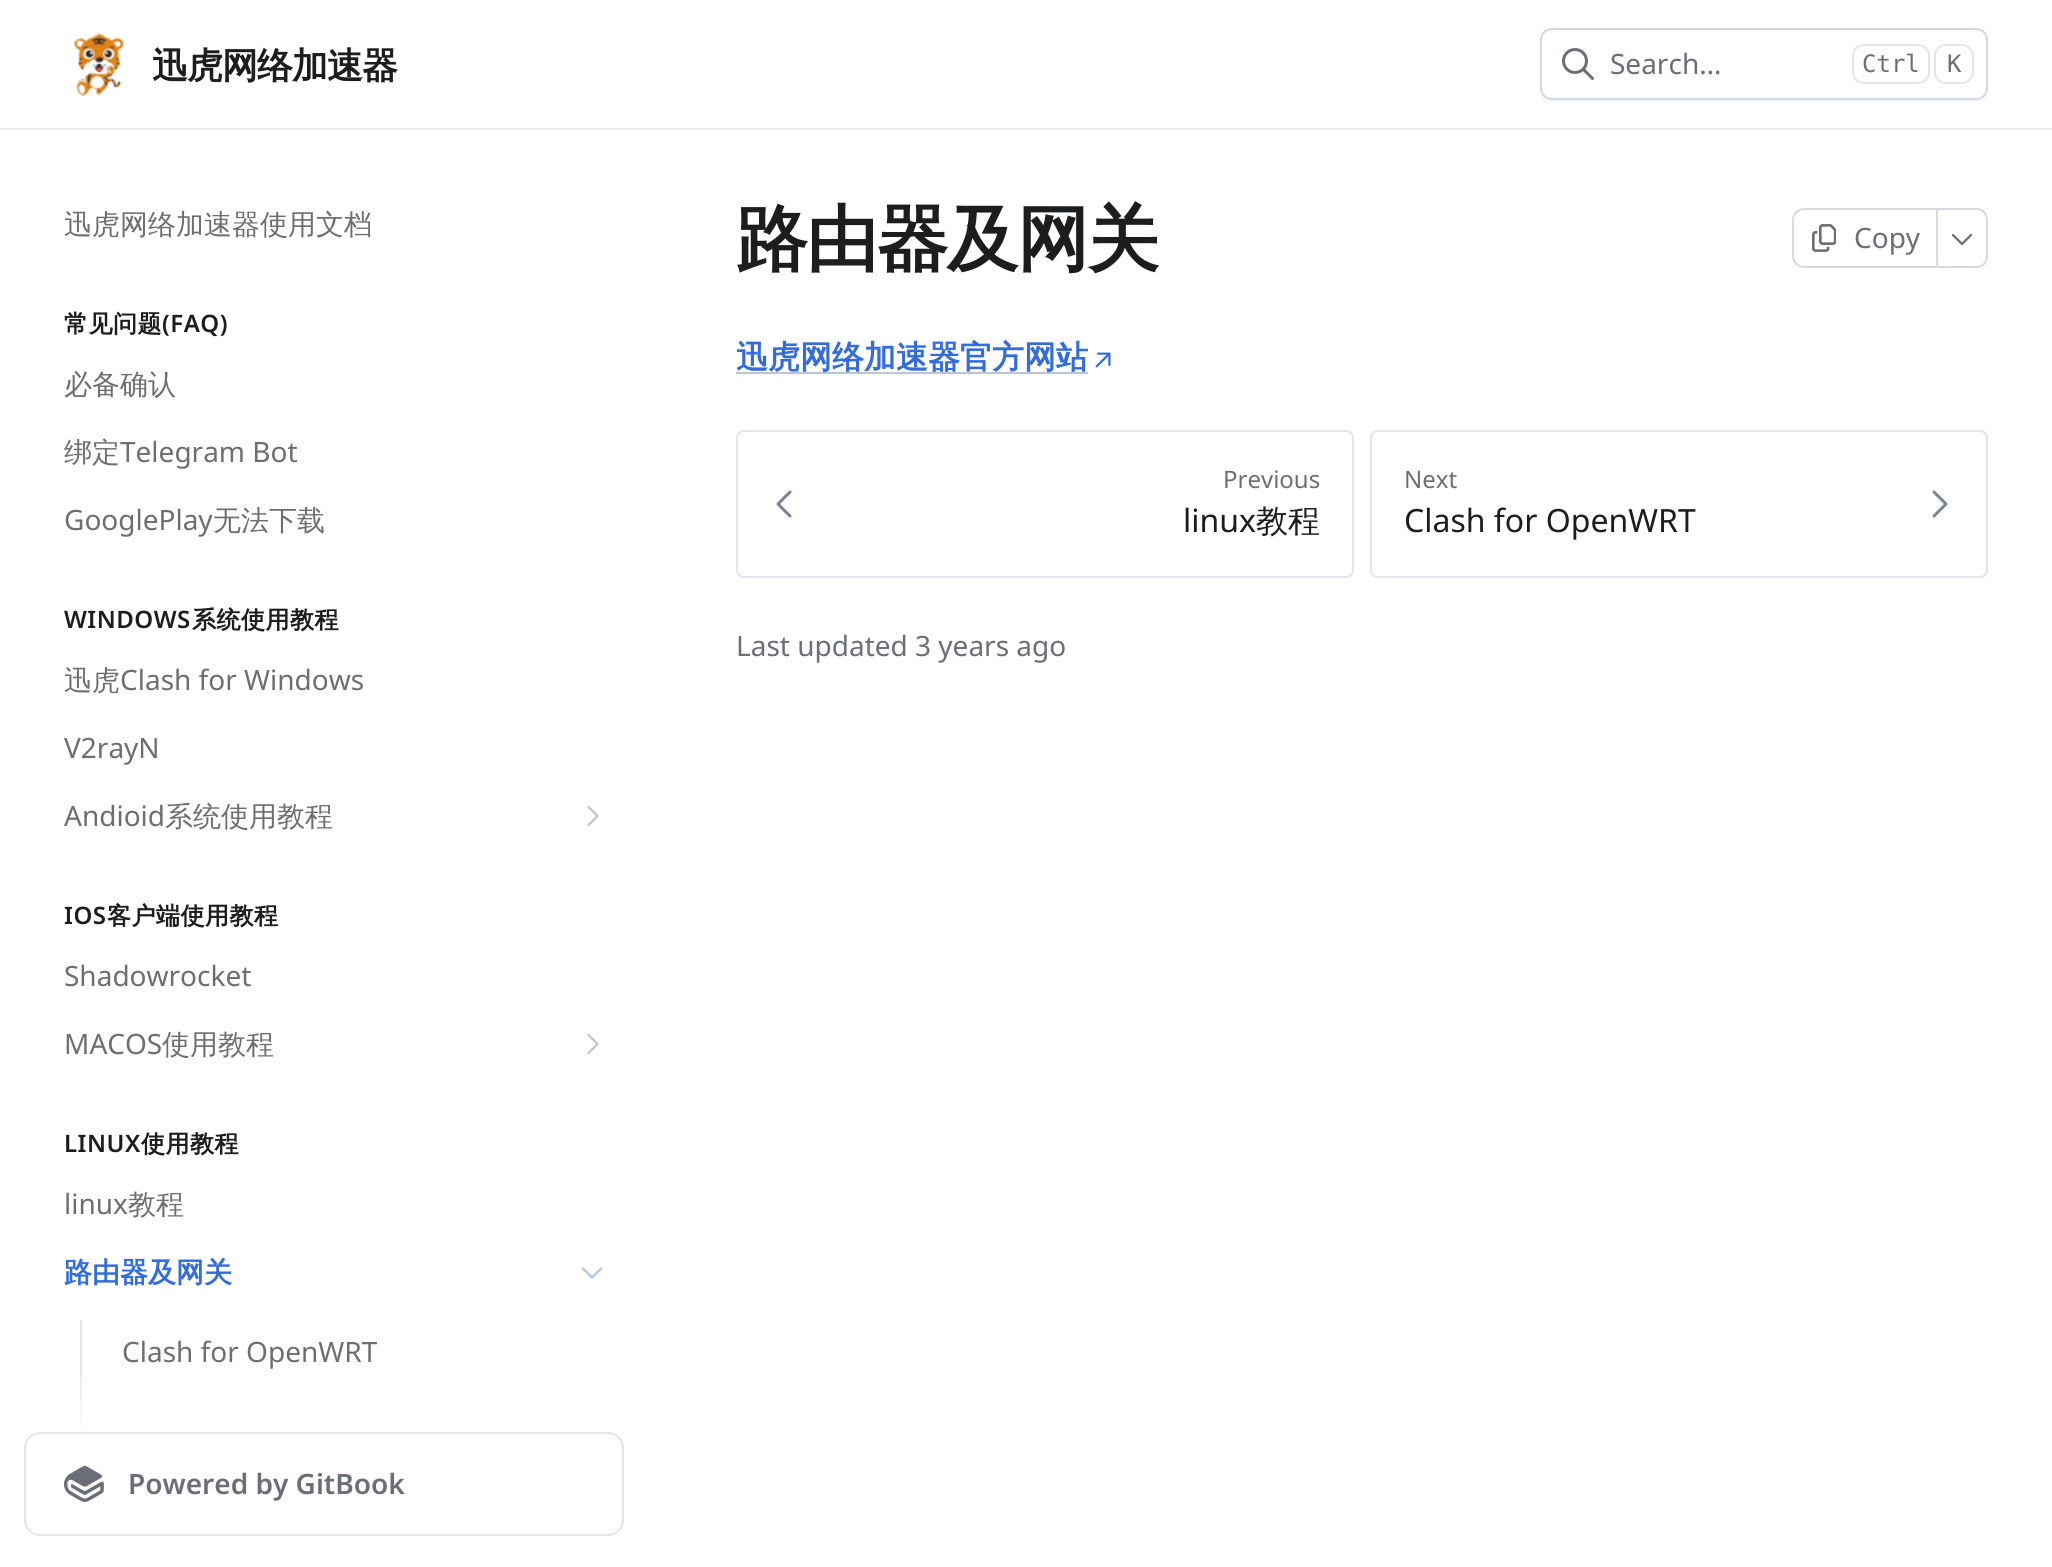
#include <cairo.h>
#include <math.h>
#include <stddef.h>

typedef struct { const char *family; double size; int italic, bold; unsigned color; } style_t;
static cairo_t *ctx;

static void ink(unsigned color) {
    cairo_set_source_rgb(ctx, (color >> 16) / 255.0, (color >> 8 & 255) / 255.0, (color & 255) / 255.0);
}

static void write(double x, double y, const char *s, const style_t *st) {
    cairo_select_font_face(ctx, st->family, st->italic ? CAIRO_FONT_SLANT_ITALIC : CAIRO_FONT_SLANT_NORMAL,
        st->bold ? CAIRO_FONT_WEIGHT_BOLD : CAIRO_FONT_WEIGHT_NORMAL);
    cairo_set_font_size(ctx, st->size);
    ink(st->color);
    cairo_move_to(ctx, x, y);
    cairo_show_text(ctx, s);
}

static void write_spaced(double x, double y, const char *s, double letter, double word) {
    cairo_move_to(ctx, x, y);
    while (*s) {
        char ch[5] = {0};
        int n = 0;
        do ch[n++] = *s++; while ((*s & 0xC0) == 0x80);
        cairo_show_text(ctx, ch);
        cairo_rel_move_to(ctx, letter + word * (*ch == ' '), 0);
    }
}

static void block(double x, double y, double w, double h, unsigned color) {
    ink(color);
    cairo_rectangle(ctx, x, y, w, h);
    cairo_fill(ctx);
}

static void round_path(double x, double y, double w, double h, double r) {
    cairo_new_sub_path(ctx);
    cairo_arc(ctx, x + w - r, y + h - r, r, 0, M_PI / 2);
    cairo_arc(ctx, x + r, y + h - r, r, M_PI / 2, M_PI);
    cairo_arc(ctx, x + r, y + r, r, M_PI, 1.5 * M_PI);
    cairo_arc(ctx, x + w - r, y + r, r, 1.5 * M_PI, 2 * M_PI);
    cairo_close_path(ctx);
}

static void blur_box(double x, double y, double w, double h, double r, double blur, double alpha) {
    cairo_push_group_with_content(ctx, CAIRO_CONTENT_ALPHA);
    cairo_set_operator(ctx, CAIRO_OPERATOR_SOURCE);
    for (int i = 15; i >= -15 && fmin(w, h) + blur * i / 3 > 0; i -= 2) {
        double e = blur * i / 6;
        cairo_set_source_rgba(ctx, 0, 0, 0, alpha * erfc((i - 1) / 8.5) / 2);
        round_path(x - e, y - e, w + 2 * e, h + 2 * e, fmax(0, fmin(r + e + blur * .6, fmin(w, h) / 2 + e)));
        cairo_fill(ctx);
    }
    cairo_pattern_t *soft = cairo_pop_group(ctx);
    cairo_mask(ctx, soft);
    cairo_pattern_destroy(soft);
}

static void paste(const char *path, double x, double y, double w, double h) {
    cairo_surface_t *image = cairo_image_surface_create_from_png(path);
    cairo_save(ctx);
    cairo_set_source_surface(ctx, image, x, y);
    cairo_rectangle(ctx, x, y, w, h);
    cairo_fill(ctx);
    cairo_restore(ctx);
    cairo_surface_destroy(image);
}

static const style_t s1 = {"Noto Sans", 28, 0, 0, 0x6a6e77};
static const style_t s2 = {"DejaVu Sans Mono", 24, 0, 0, 0x6a6e77};
static const style_t s3 = {"WenQuanYi Zen Hei Medium", 28, 0, 0, 0x6e6e70};
static const style_t s4 = {"Noto Sans", 28, 0, 0, 0x6e6e70};
static const style_t s5 = {"WenQuanYi Zen Hei", 28, 0, 1, 0x346ddb};
static const style_t s6 = {"Noto Sans SemiBold", 28, 0, 0, 0x6a6e77};
static const style_t s7 = {"WenQuanYi Zen Hei", 32, 0, 1, 0x346ddb};
static const style_t s8 = {"Noto Sans", 24, 0, 0, 0x6a6e77};
static const style_t s9 = {"Noto Sans", 32, 0, 0, 0x1c1d1f};
static const style_t s10 = {"WenQuanYi Zen Hei Medium", 32, 0, 0, 0x1c1d1f};

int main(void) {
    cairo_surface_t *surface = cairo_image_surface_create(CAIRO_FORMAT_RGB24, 2052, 1567);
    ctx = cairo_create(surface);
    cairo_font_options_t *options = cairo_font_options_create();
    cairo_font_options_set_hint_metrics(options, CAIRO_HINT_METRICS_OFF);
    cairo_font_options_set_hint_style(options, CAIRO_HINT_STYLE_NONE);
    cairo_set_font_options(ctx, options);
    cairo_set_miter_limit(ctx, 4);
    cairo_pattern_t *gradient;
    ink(0xffffff);
    cairo_paint(ctx);
    block(0, 128, 2052, 2, 0xededed);
    paste("pic1.png", 73, 32, 52, 64);
    cairo_select_font_face(ctx, "WenQuanYi Zen Hei", CAIRO_FONT_SLANT_NORMAL, CAIRO_FONT_WEIGHT_BOLD);
    cairo_set_font_size(ctx, 36);
    ink(0x1c1d1f);
    write_spaced(152, 78, "迅虎网络加速器", -1, 0);
    ink(0xd5d9e0);
    blur_box(1540, 30, 448, 72, 12, 2, 0.4);
    ink(0xffffff);
    round_path(1541, 29, 446, 70, 11);
    cairo_fill_preserve(ctx);
    ink(0xd5d9e0);
    cairo_stroke(ctx);
    paste("pic2.png", 1562, 48, 32, 32);
    write(1610, 74, "Search…", &s1);
    round_path(1853, 45, 76, 38, 11);
    ink(0xe2e6ec);
    cairo_stroke(ctx);
    write(1862, 72, "Ctrl", &s2);
    round_path(1935, 45, 38, 38, 11);
    ink(0xe2e6ec);
    cairo_stroke(ctx);
    write(1947, 72, "K", &s2);
    write(64, 234, "迅虎网络加速器使用文档", &s3);
    cairo_select_font_face(ctx, "WenQuanYi Zen Hei", CAIRO_FONT_SLANT_NORMAL, CAIRO_FONT_WEIGHT_BOLD);
    cairo_set_font_size(ctx, 24);
    ink(0x1c1d1f);
    write_spaced(64, 332, "常见问题", 0.5, 0);
    cairo_select_font_face(ctx, "Noto Sans SemiBold", CAIRO_FONT_SLANT_NORMAL, CAIRO_FONT_WEIGHT_NORMAL);
    write_spaced(162, 332, "(FAQ)", 0.5, 0);
    write(64, 394, "必备确认", &s3);
    write(64, 462, "绑定", &s3);
    write(120, 462, "Telegram Bot", &s4);
    write(64, 530, "GooglePlay", &s4);
    write(213, 530, "无法下载", &s3);
    cairo_select_font_face(ctx, "Noto Sans SemiBold", CAIRO_FONT_SLANT_NORMAL, CAIRO_FONT_WEIGHT_NORMAL);
    cairo_set_font_size(ctx, 24);
    ink(0x1c1d1f);
    write_spaced(64, 628, "WINDOWS", 0.5, 0);
    cairo_select_font_face(ctx, "WenQuanYi Zen Hei", CAIRO_FONT_SLANT_NORMAL, CAIRO_FONT_WEIGHT_BOLD);
    write_spaced(192, 628, "系统使用教程", 0.5, 0);
    write(64, 690, "迅虎", &s3);
    write(120, 690, "Clash for Windows", &s4);
    write(64, 758, "V2rayN", &s4);
    write(64, 826, "Andioid", &s4);
    write(165, 826, "系统使用教程", &s3);
    paste("pic3.png", 587, 806, 12, 20);
    cairo_select_font_face(ctx, "Noto Sans SemiBold", CAIRO_FONT_SLANT_NORMAL, CAIRO_FONT_WEIGHT_NORMAL);
    cairo_set_font_size(ctx, 24);
    ink(0x1c1d1f);
    write_spaced(64, 924, "IOS", 0.5, 0);
    cairo_select_font_face(ctx, "WenQuanYi Zen Hei", CAIRO_FONT_SLANT_NORMAL, CAIRO_FONT_WEIGHT_BOLD);
    write_spaced(107, 924, "客户端使用教程", 0.5, 0);
    write(64, 986, "Shadowrocket", &s4);
    write(64, 1054, "MACOS", &s4);
    write(162, 1054, "使用教程", &s3);
    paste("pic3.png", 587, 1034, 12, 20);
    cairo_select_font_face(ctx, "Noto Sans SemiBold", CAIRO_FONT_SLANT_NORMAL, CAIRO_FONT_WEIGHT_NORMAL);
    cairo_set_font_size(ctx, 24);
    ink(0x1c1d1f);
    write_spaced(64, 1152, "LINUX", 0.5, 0);
    cairo_select_font_face(ctx, "WenQuanYi Zen Hei", CAIRO_FONT_SLANT_NORMAL, CAIRO_FONT_WEIGHT_BOLD);
    write_spaced(141, 1152, "使用教程", 0.5, 0);
    write(64, 1214, "linux", &s4);
    write(128, 1214, "教程", &s3);
    write(64, 1282, "路由器及网关", &s5);
    paste("pic4.png", 581, 1267, 22, 12);
    block(80, 1320, 2, 112, 0xe2e6ec);
    write(122, 1362, "Clash for OpenWRT", &s4);
    gradient = cairo_pattern_create_linear(324, 1368, 324, 1432);
    cairo_pattern_add_color_stop_rgba(gradient, 0, 1, 1, 1, 0);
    cairo_pattern_add_color_stop_rgba(gradient, 1, 1, 1, 1, 1);
    cairo_set_source(ctx, gradient);
    cairo_pattern_destroy(gradient);
    cairo_rectangle(ctx, 80, 1374, 2, 58);
    cairo_fill(ctx);
    round_path(25, 1433, 598, 102, 15);
    ink(0xe2e6ec);
    cairo_stroke(ctx);
    paste("pic5.png", 64, 1465, 40, 37);
    write(128, 1494, "Powered by GitBook", &s6);
    cairo_select_font_face(ctx, "WenQuanYi Zen Hei", CAIRO_FONT_SLANT_NORMAL, CAIRO_FONT_WEIGHT_BOLD);
    cairo_set_font_size(ctx, 72);
    ink(0x1c1d1f);
    write_spaced(736, 264, "路由器及网关", -1.75, 0);
    cairo_new_path(ctx);
    cairo_move_to(ctx, 1804, 209);
    cairo_line_to(ctx, 1937, 209);
    cairo_line_to(ctx, 1937, 267);
    cairo_line_to(ctx, 1804, 267);
    cairo_curve_to(ctx, 1798, 267, 1793, 262, 1793, 256);
    cairo_line_to(ctx, 1793, 220);
    cairo_curve_to(ctx, 1793, 214, 1798, 209, 1804, 209);
    cairo_close_path(ctx);
    ink(0xd5d9e0);
    cairo_stroke(ctx);
    paste("pic6.png", 1812, 224, 24, 28);
    write(1854, 248, "Copy", &s1);
    ink(0xd5d9e0);
    cairo_set_fill_rule(ctx, CAIRO_FILL_RULE_EVEN_ODD);
    cairo_new_path(ctx);
    cairo_move_to(ctx, 1938, 208);
    cairo_line_to(ctx, 1976, 208);
    cairo_curve_to(ctx, 1983, 208, 1988, 213, 1988, 220);
    cairo_line_to(ctx, 1988, 256);
    cairo_curve_to(ctx, 1988, 263, 1983, 268, 1976, 268);
    cairo_line_to(ctx, 1938, 268);
    cairo_close_path(ctx);
    cairo_move_to(ctx, 1938, 210);
    cairo_line_to(ctx, 1976, 210);
    cairo_curve_to(ctx, 1982, 210, 1986, 214, 1986, 220);
    cairo_line_to(ctx, 1986, 256);
    cairo_curve_to(ctx, 1986, 262, 1982, 266, 1976, 266);
    cairo_line_to(ctx, 1938, 266);
    cairo_close_path(ctx);
    cairo_fill(ctx);
    paste("pic7.png", 1951, 233, 22, 13);
    block(736, 372, 352, 2, 0xbcc5d6);
    write(736, 368, "迅虎网络加速器官方网站", &s7);
    paste("pic8.png", 1095, 352, 16, 16);
    round_path(737, 431, 616, 146, 7);
    ink(0xe2e6ec);
    cairo_stroke(ctx);
    paste("pic9.png", 776, 490, 16, 28);
    write(1223, 488, "Previous", &s8);
    write(1183, 532, "linux", &s9);
    write(1256, 532, "教程", &s10);
    round_path(1371, 431, 616, 146, 7);
    ink(0xe2e6ec);
    cairo_stroke(ctx);
    write(1404, 488, "Next", &s8);
    write(1404, 532, "Clash for OpenWRT", &s9);
    paste("pic10.png", 1932, 490, 16, 28);
    write(736, 656, "Last updated 3 years ago", &s1);
    cairo_surface_write_to_png(surface, "screenshot.png");
    cairo_font_options_destroy(options);
    cairo_destroy(ctx);
    cairo_surface_destroy(surface);
    return 0;
}
